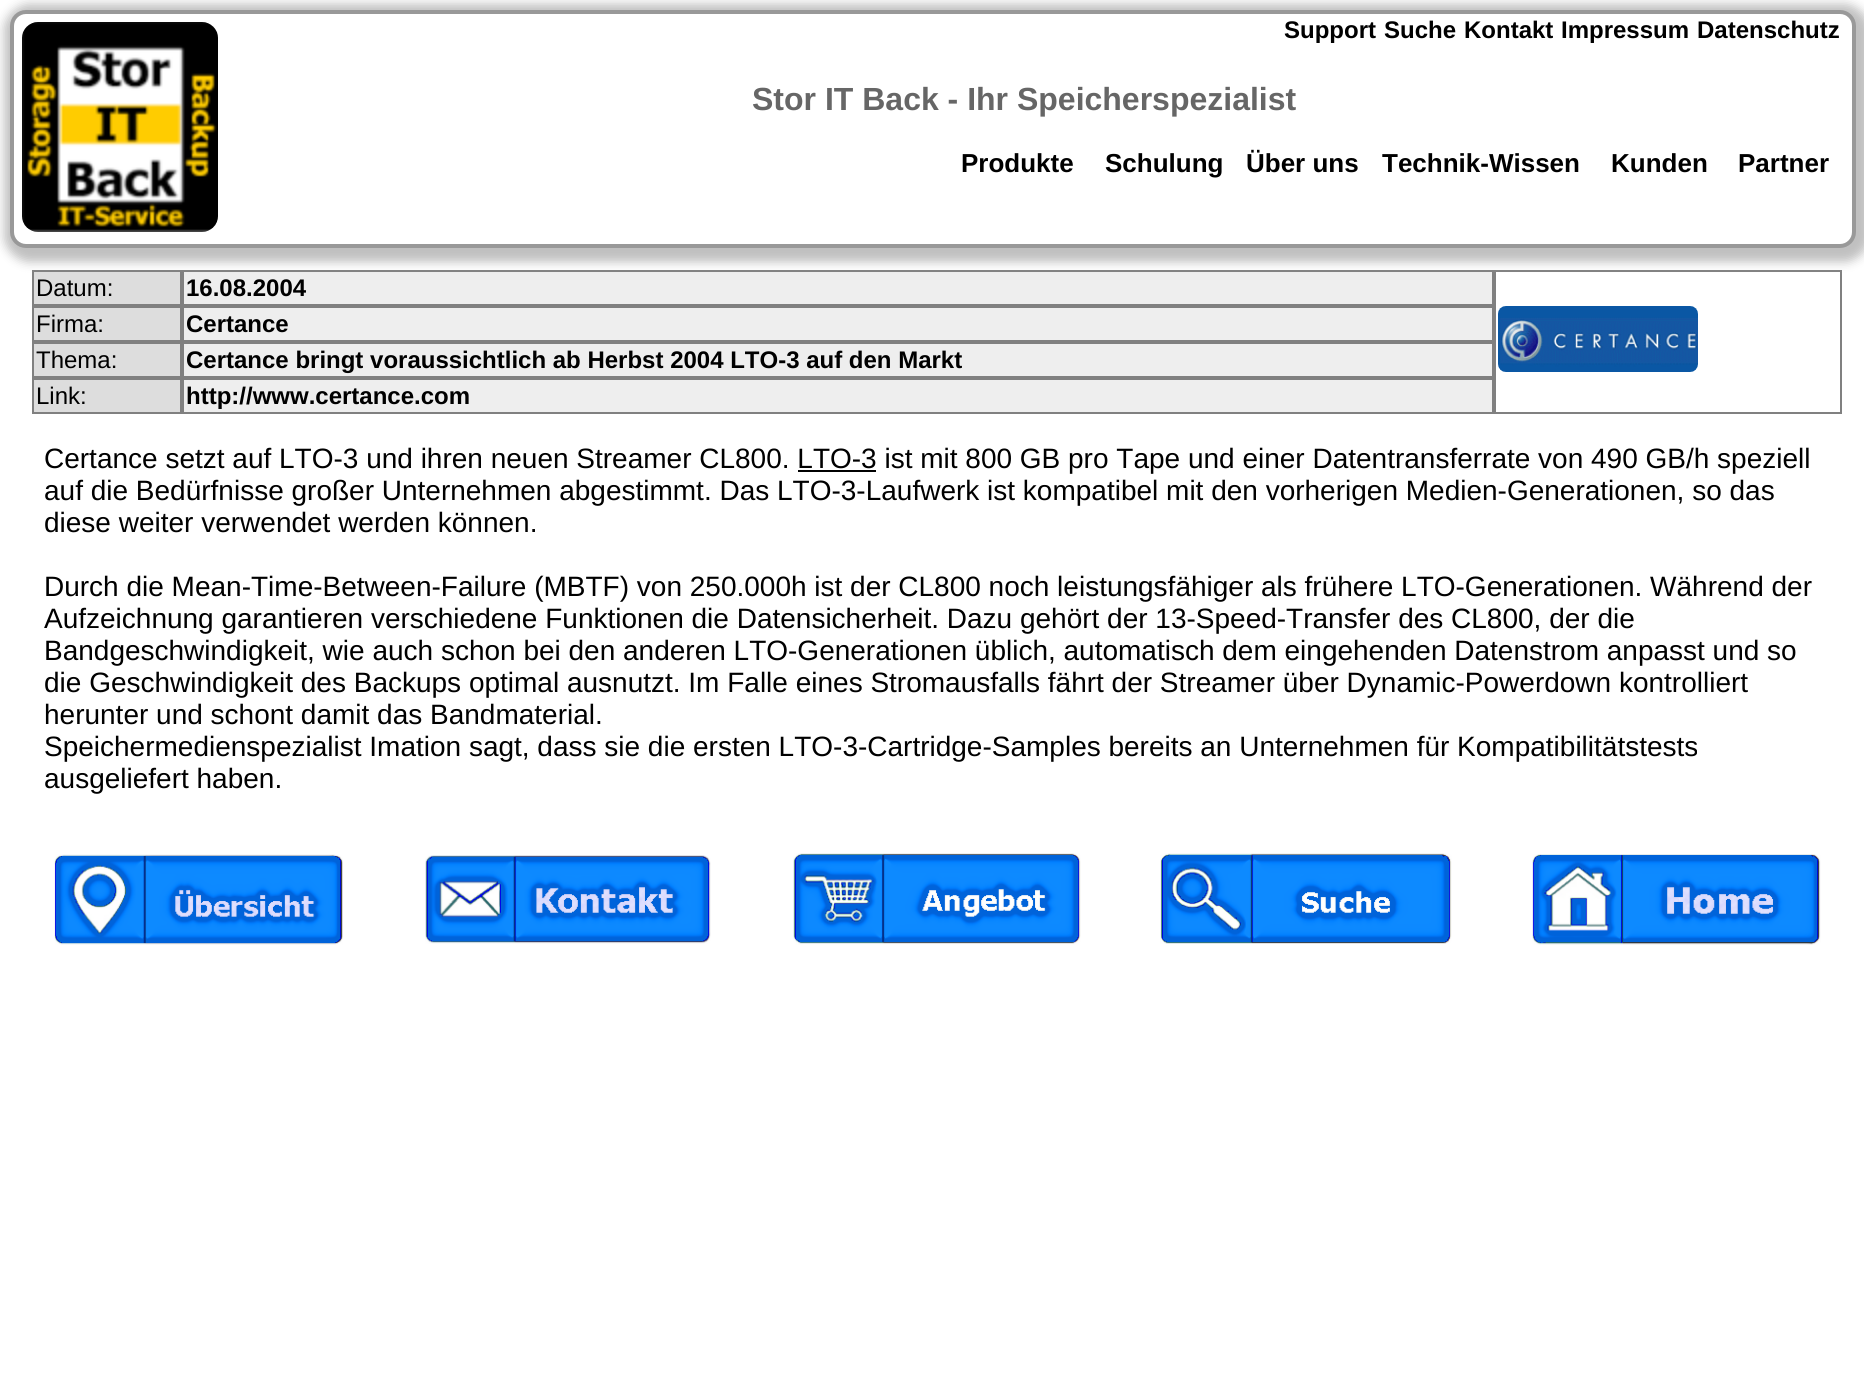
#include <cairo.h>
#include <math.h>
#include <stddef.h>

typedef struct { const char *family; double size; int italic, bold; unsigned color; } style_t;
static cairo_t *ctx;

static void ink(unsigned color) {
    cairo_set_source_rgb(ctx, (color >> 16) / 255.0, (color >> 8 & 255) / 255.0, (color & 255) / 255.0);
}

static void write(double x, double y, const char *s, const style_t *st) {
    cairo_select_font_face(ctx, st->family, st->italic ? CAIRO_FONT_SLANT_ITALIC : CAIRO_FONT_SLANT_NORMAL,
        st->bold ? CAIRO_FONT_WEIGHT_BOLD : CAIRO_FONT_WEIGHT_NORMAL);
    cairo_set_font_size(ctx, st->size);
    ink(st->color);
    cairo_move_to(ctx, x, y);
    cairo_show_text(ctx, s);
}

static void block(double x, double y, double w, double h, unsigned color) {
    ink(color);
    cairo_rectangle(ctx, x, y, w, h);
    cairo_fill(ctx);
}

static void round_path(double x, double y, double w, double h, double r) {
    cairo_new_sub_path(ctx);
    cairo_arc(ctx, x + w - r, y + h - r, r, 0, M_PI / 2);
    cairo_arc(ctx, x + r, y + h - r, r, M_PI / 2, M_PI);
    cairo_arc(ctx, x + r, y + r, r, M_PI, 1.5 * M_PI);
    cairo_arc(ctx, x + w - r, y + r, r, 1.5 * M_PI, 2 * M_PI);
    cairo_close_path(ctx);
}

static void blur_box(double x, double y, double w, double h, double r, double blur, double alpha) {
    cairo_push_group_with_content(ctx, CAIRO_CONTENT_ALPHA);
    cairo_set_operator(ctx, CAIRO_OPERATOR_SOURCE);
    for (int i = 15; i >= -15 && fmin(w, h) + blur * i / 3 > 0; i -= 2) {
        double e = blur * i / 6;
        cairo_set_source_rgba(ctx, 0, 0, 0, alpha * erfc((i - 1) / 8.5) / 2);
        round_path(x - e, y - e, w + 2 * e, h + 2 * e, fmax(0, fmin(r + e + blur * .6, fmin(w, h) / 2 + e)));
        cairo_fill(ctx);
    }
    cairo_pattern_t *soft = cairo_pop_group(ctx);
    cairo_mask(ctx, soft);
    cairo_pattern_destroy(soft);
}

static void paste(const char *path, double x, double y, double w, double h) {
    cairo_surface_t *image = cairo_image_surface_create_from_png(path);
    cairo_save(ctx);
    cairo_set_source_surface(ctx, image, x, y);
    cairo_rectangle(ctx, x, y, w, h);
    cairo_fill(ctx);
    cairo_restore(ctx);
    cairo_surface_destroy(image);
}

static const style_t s1 = {"Liberation Sans", 32, 0, 1, 0x666666};
static const style_t s2 = {"Liberation Sans", 24, 0, 1, 0x000000};
static const style_t s3 = {"Liberation Sans", 26, 0, 1, 0x000000};
static const style_t s4 = {"Liberation Sans", 24, 0, 0, 0x000000};
static const style_t s5 = {"Liberation Sans", 28, 0, 0, 0x000000};

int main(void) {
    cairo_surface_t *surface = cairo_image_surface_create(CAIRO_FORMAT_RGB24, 1864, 1373);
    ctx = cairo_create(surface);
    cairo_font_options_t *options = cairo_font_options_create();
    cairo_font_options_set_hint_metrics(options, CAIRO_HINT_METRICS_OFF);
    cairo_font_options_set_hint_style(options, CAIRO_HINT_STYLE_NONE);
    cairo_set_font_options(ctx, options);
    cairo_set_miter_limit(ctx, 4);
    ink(0xffffff);
    cairo_paint(ctx);
    ink(0xdddddd);
    cairo_rectangle(ctx, 33, 271, 148, 34);
    cairo_fill_preserve(ctx);
    ink(0x808080);
    cairo_stroke(ctx);
    ink(0xeeeeee);
    cairo_rectangle(ctx, 183, 271, 1310, 34);
    cairo_fill_preserve(ctx);
    ink(0x808080);
    cairo_stroke(ctx);
    cairo_rectangle(ctx, 1495, 271, 346, 142);
    cairo_stroke(ctx);
    ink(0xc0c0c0);
    blur_box(4, 4, 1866, 258, 26, 5, 1);
    ink(0xffffff);
    round_path(12, 12, 1842, 234, 14);
    cairo_fill_preserve(ctx);
    ink(0x999999);
    cairo_set_line_width(ctx, 4);
    cairo_stroke(ctx);
    paste("pic1.png", 22, 22, 196, 210);
    write(752, 110, "Stor IT Back - Ihr Speicherspezialist", &s1);
    write(1284, 38, "Support", &s2);
    write(1384, 38, "Suche", &s2);
    write(1464, 38, "Kontakt", &s2);
    write(1561, 38, "Impressum", &s2);
    write(1697, 38, "Datenschutz", &s2);
    write(961, 172, "Produkte", &s3);
    write(1105, 172, "Schulung", &s3);
    write(1246, 172, "Über uns", &s3);
    write(1382, 172, "Technik-Wissen", &s3);
    write(1611, 172, "Kunden", &s3);
    write(1738, 172, "Partner", &s3);
    write(36, 296, "Datum:", &s4);
    write(186, 296, "16.08.2004", &s2);
    paste("pic2.png", 1498, 306, 200, 66);
    ink(0xdddddd);
    cairo_rectangle(ctx, 33, 307, 148, 34);
    cairo_fill_preserve(ctx);
    ink(0x808080);
    cairo_set_line_width(ctx, 2);
    cairo_stroke(ctx);
    write(36, 332, "Firma:", &s4);
    ink(0xeeeeee);
    cairo_rectangle(ctx, 183, 307, 1310, 34);
    cairo_fill_preserve(ctx);
    ink(0x808080);
    cairo_stroke(ctx);
    write(186, 332, "Certance", &s2);
    ink(0xdddddd);
    cairo_rectangle(ctx, 33, 343, 148, 34);
    cairo_fill_preserve(ctx);
    ink(0x808080);
    cairo_stroke(ctx);
    write(36, 368, "Thema:", &s4);
    ink(0xeeeeee);
    cairo_rectangle(ctx, 183, 343, 1310, 34);
    cairo_fill_preserve(ctx);
    ink(0x808080);
    cairo_stroke(ctx);
    write(186, 368, "Certance bringt voraussichtlich ab Herbst 2004 LTO-3 auf den Markt", &s2);
    ink(0xdddddd);
    cairo_rectangle(ctx, 33, 379, 148, 34);
    cairo_fill_preserve(ctx);
    ink(0x808080);
    cairo_stroke(ctx);
    write(36, 404, "Link:", &s4);
    ink(0xeeeeee);
    cairo_rectangle(ctx, 183, 379, 1310, 34);
    cairo_fill_preserve(ctx);
    ink(0x808080);
    cairo_stroke(ctx);
    write(186, 404, "http://www.certance.com", &s2);
    write(44, 468, "Certance setzt auf LTO-3 und ihren neuen Streamer CL800. LTO-3 ist mit 800 GB pro Tape und einer Datentransferrate von 490 GB/h speziell", &s5);
    block(798, 470, 78, 2, 0x000000);
    write(44, 500, "auf die Bedürfnisse großer Unternehmen abgestimmt. Das LTO-3-Laufwerk ist kompatibel mit den vorherigen Medien-Generationen, so das", &s5);
    write(44, 532, "diese weiter verwendet werden können.", &s5);
    write(44, 596, "Durch die Mean-Time-Between-Failure (MBTF) von 250.000h ist der CL800 noch leistungsfähiger als frühere LTO-Generationen. Während der", &s5);
    write(44, 628, "Aufzeichnung garantieren verschiedene Funktionen die Datensicherheit. Dazu gehört der 13-Speed-Transfer des CL800, der die", &s5);
    write(44, 660, "Bandgeschwindigkeit, wie auch schon bei den anderen LTO-Generationen üblich, automatisch dem eingehenden Datenstrom anpasst und so", &s5);
    write(44, 692, "die Geschwindigkeit des Backups optimal ausnutzt. Im Falle eines Stromausfalls fährt der Streamer über Dynamic-Powerdown kontrolliert", &s5);
    write(44, 724, "herunter und schont damit das Bandmaterial.", &s5);
    write(44, 756, "Speichermedienspezialist Imation sagt, dass sie die ersten LTO-3-Cartridge-Samples bereits an Unternehmen für Kompatibilitätstests", &s5);
    write(44, 788, "ausgeliefert haben.", &s5);
    paste("pic3.png", 54, 854, 289, 91);
    paste("pic4.png", 425, 855, 286, 89);
    paste("pic5.png", 793, 853, 288, 92);
    paste("pic6.png", 1160, 853, 292, 91);
    paste("pic7.png", 1532, 854, 289, 91);
    cairo_surface_write_to_png(surface, "screenshot.png");
    cairo_font_options_destroy(options);
    cairo_destroy(ctx);
    cairo_surface_destroy(surface);
    return 0;
}
